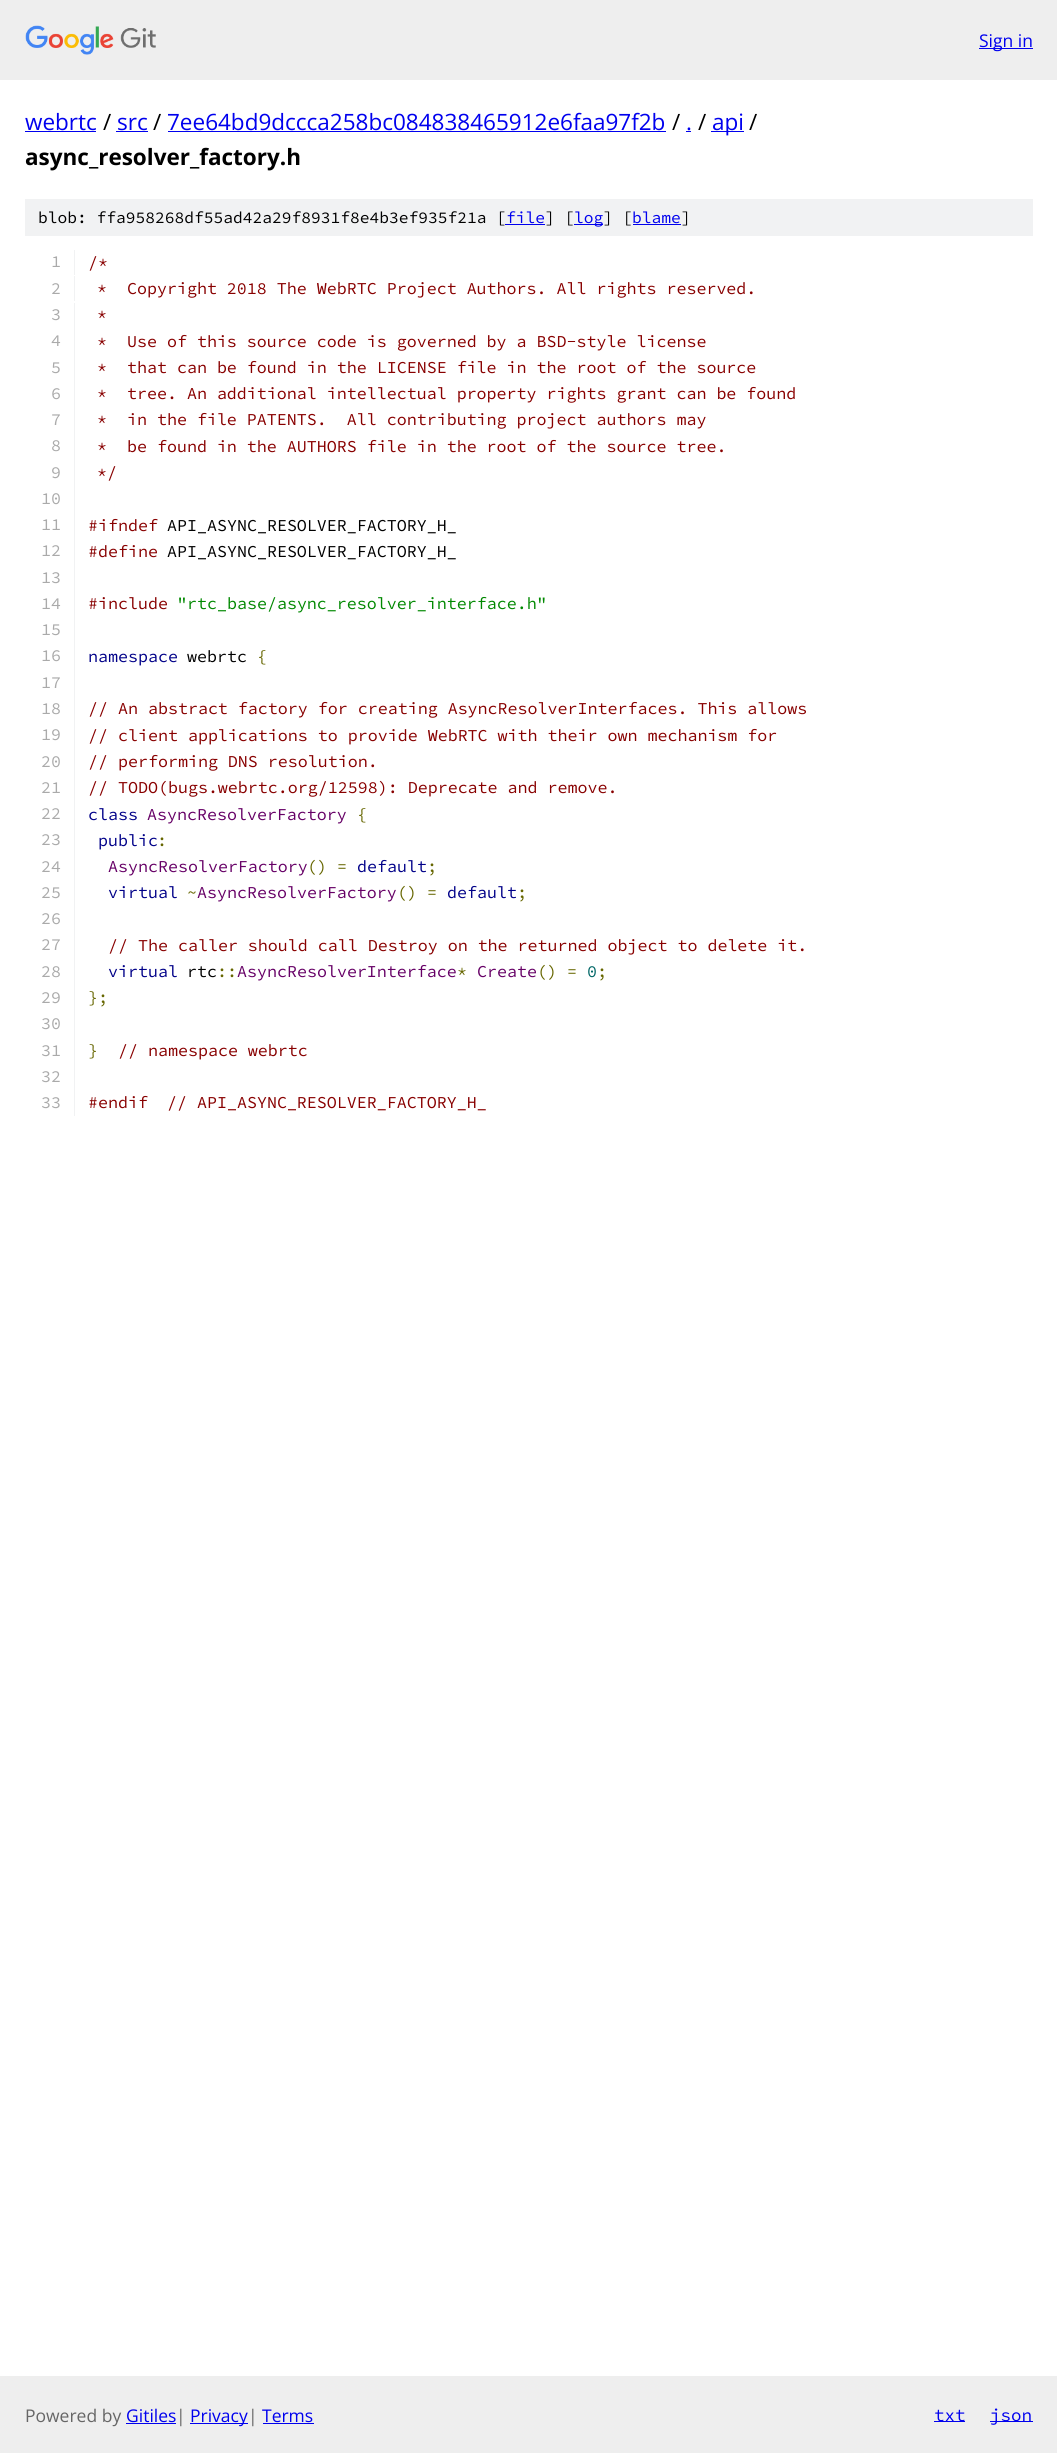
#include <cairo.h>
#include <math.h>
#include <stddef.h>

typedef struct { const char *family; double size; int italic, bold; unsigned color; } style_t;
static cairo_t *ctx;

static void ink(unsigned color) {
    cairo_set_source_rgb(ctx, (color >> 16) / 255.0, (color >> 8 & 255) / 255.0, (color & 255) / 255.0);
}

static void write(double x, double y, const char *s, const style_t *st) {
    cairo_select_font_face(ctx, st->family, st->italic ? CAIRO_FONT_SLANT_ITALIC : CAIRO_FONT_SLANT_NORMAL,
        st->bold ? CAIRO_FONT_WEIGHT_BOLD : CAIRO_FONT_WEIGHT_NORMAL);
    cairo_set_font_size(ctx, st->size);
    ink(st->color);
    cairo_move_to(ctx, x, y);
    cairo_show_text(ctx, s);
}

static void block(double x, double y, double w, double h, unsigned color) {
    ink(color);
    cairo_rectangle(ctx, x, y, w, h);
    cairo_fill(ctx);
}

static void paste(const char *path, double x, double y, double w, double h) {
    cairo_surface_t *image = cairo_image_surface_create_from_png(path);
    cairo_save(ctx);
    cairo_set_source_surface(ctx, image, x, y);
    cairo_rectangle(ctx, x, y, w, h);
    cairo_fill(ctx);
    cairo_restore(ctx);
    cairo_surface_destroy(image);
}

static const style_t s1 = {"Open Sans", 17.5, 0, 0, 0x0000ee};
static const style_t s2 = {"Open Sans", 22.5, 0, 0, 0x0000ee};
static const style_t s3 = {"Open Sans", 22.5, 0, 0, 0x000000};
static const style_t s4 = {"Open Sans", 22.5, 0, 1, 0x000000};
static const style_t s5 = {"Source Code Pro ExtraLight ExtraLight", 16.25, 0, 0, 0x000000};
static const style_t s6 = {"Source Code Pro ExtraLight ExtraLight", 16.25, 0, 0, 0x0000ee};
static const style_t s7 = {"Source Code Pro ExtraLight ExtraLight", 16.65, 0, 0, 0xaaaaaa};
static const style_t s8 = {"Source Code Pro ExtraLight ExtraLight", 16.65, 0, 0, 0x880000};
static const style_t s9 = {"Source Code Pro ExtraLight ExtraLight", 16.65, 0, 0, 0x000000};
static const style_t s10 = {"Source Code Pro ExtraLight ExtraLight", 16.65, 0, 0, 0x008800};
static const style_t s11 = {"Source Code Pro ExtraLight ExtraLight", 16.65, 0, 0, 0x000088};
static const style_t s12 = {"Source Code Pro ExtraLight ExtraLight", 16.65, 0, 0, 0x666600};
static const style_t s13 = {"Source Code Pro ExtraLight ExtraLight", 16.65, 0, 0, 0x660066};
static const style_t s14 = {"Source Code Pro ExtraLight ExtraLight", 16.65, 0, 0, 0x006666};
static const style_t s15 = {"Open Sans", 17.5, 0, 0, 0x666666};
static const style_t s16 = {"Source Code Pro ExtraLight ExtraLight", 17.5, 0, 0, 0x0000ee};

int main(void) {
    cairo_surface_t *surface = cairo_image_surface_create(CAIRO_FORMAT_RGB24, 1057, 2453);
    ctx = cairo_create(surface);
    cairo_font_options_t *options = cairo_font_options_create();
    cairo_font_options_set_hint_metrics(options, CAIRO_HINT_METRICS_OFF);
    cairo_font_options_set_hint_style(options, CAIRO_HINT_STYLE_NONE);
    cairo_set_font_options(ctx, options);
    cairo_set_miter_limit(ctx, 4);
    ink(0xffffff);
    cairo_paint(ctx);
    block(0, 0, 1057, 80, 0xeeeeee);
    paste("pic1.png", 25, 25, 131, 30);
    block(979, 48, 54, 1, 0x0000ee);
    write(979, 47, "Sign in", &s1);
    write(25, 130, "webrtc", &s2);
    block(25, 131, 71, 1, 0x0000ee);
    write(103, 130, "/", &s3);
    write(117, 130, "src", &s2);
    block(116, 131, 32, 1, 0x0000ee);
    write(153, 130, "/", &s3);
    write(167, 130, "7ee64bd9dccca258bc084838465912e6faa97f2b", &s2);
    block(168, 131, 498, 1, 0x0000ee);
    write(672, 130, "/", &s3);
    write(686, 130, ".", &s2);
    block(686, 131, 5, 1, 0x0000ee);
    write(698, 130, "/", &s3);
    block(711, 131, 33, 1, 0x0000ee);
    write(712, 130, "api", &s2);
    write(749, 130, "/", &s3);
    write(25, 165, "async_resolver_factory.h", &s4);
    block(25, 199, 1008, 37, 0xf1f2f3);
    write(38, 223, "blob: ffa958268df55ad42a29f8931f8e4b3ef935f21a [", &s5);
    write(506, 223, "file", &s6);
    block(505, 224, 40, 1, 0x0000ee);
    write(545, 223, "] [", &s5);
    block(574, 224, 29, 1, 0x0000ee);
    write(574, 223, "log", &s6);
    write(603, 223, "] [", &s5);
    write(632, 223, "blame", &s6);
    block(633, 224, 48, 1, 0x0000ee);
    write(681, 223, "]", &s5);
    block(74, 250, 1, 25, 0xf1f2f3);
    write(51, 267, "1", &s7);
    write(88, 268, "/*", &s8);
    block(74, 276, 1, 25, 0xf1f2f3);
    write(51, 294, "2", &s7);
    write(97, 294, "*  Copyright 2018 The WebRTC Project Authors. All rights reserved.", &s8);
    block(74, 303, 1, 813, 0xf1f2f3);
    write(51, 320, "3", &s7);
    write(97, 320, "*", &s8);
    write(51, 346, "4", &s7);
    write(97, 347, "*  Use of this source code is governed by a BSD-style license", &s8);
    write(51, 373, "5", &s7);
    write(97, 373, "*  that can be found in the LICENSE file in the root of the source", &s8);
    write(51, 399, "6", &s7);
    write(97, 399, "*  tree. An additional intellectual property rights grant can be found", &s8);
    write(51, 425, "7", &s7);
    write(97, 425, "*  in the file PATENTS.  All contributing project authors may", &s8);
    write(51, 451, "8", &s7);
    write(97, 452, "*  be found in the AUTHORS file in the root of the source tree.", &s8);
    write(51, 478, "9", &s7);
    write(97, 478, "*/", &s8);
    write(41, 504, "10", &s7);
    write(41, 530, "11", &s7);
    write(88, 531, "#ifndef", &s8);
    write(167, 531, "API_ASYNC_RESOLVER_FACTORY_H_", &s9);
    write(41, 556, "12", &s7);
    write(88, 557, "#define", &s8);
    write(167, 557, "API_ASYNC_RESOLVER_FACTORY_H_", &s9);
    write(41, 583, "13", &s7);
    write(41, 609, "14", &s7);
    write(88, 609, "#include", &s8);
    write(177, 609, "\"rtc_base/async_resolver_interface.h\"", &s10);
    write(41, 635, "15", &s7);
    write(41, 661, "16", &s7);
    write(88, 662, "namespace", &s11);
    write(187, 662, "webrtc", &s9);
    write(257, 662, "{", &s12);
    write(41, 688, "17", &s7);
    write(41, 714, "18", &s7);
    write(88, 714, "// An abstract factory for creating AsyncResolverInterfaces. This allows", &s8);
    write(41, 740, "19", &s7);
    write(88, 741, "// client applications to provide WebRTC with their own mechanism for", &s8);
    write(41, 767, "20", &s7);
    write(88, 767, "// performing DNS resolution.", &s8);
    write(41, 793, "21", &s7);
    write(88, 793, "// TODO(bugs.webrtc.org/12598): Deprecate and remove.", &s8);
    write(41, 819, "22", &s7);
    write(88, 820, "class", &s11);
    write(147, 820, "AsyncResolverFactory", &s13);
    write(357, 820, "{", &s12);
    write(41, 845, "23", &s7);
    write(98, 846, "public", &s11);
    write(157, 846, ":", &s12);
    write(41, 872, "24", &s7);
    write(108, 872, "AsyncResolverFactory", &s13);
    write(307, 872, "() =", &s12);
    write(357, 872, "default", &s11);
    write(427, 872, ";", &s12);
    write(41, 898, "25", &s7);
    write(108, 898, "virtual", &s11);
    write(187, 898, "~", &s12);
    write(197, 898, "AsyncResolverFactory", &s13);
    write(397, 898, "() =", &s12);
    write(447, 898, "default", &s11);
    write(517, 898, ";", &s12);
    write(41, 924, "26", &s7);
    write(41, 950, "27", &s7);
    write(108, 951, "// The caller should call Destroy on the returned object to delete it.", &s8);
    write(41, 977, "28", &s7);
    write(108, 977, "virtual", &s11);
    write(187, 977, "rtc", &s9);
    write(217, 977, "::", &s12);
    write(237, 977, "AsyncResolverInterface", &s13);
    write(457, 977, "*", &s12);
    write(477, 977, "Create", &s13);
    write(537, 977, "() =", &s12);
    write(587, 977, "0", &s14);
    write(597, 977, ";", &s12);
    write(41, 1003, "29", &s7);
    write(88, 1003, "};", &s12);
    write(41, 1029, "30", &s7);
    write(41, 1056, "31", &s7);
    write(88, 1056, "}", &s12);
    write(118, 1056, "// namespace webrtc", &s8);
    write(41, 1082, "32", &s7);
    write(41, 1108, "33", &s7);
    write(88, 1108, "#endif", &s8);
    write(167, 1108, "// API_ASYNC_RESOLVER_FACTORY_H_", &s8);
    block(0, 2376, 1057, 77, 0xeeeeee);
    write(25, 2422, "Powered by", &s15);
    write(126, 2422, "Gitiles", &s1);
    block(126, 2423, 50, 1, 0x0000ee);
    write(176, 2422, "|", &s15);
    block(190, 2423, 58, 1, 0x0000ee);
    write(190, 2422, "Privacy", &s1);
    write(248, 2422, "|", &s15);
    write(262, 2422, "Terms", &s1);
    block(263, 2423, 51, 1, 0x0000ee);
    block(934, 2421, 31, 1, 0x0000ee);
    write(934, 2421, "txt", &s16);
    block(990, 2421, 43, 1, 0x0000ee);
    write(990, 2421, "json", &s16);
    cairo_surface_write_to_png(surface, "screenshot.png");
    cairo_font_options_destroy(options);
    cairo_destroy(ctx);
    cairo_surface_destroy(surface);
    return 0;
}
